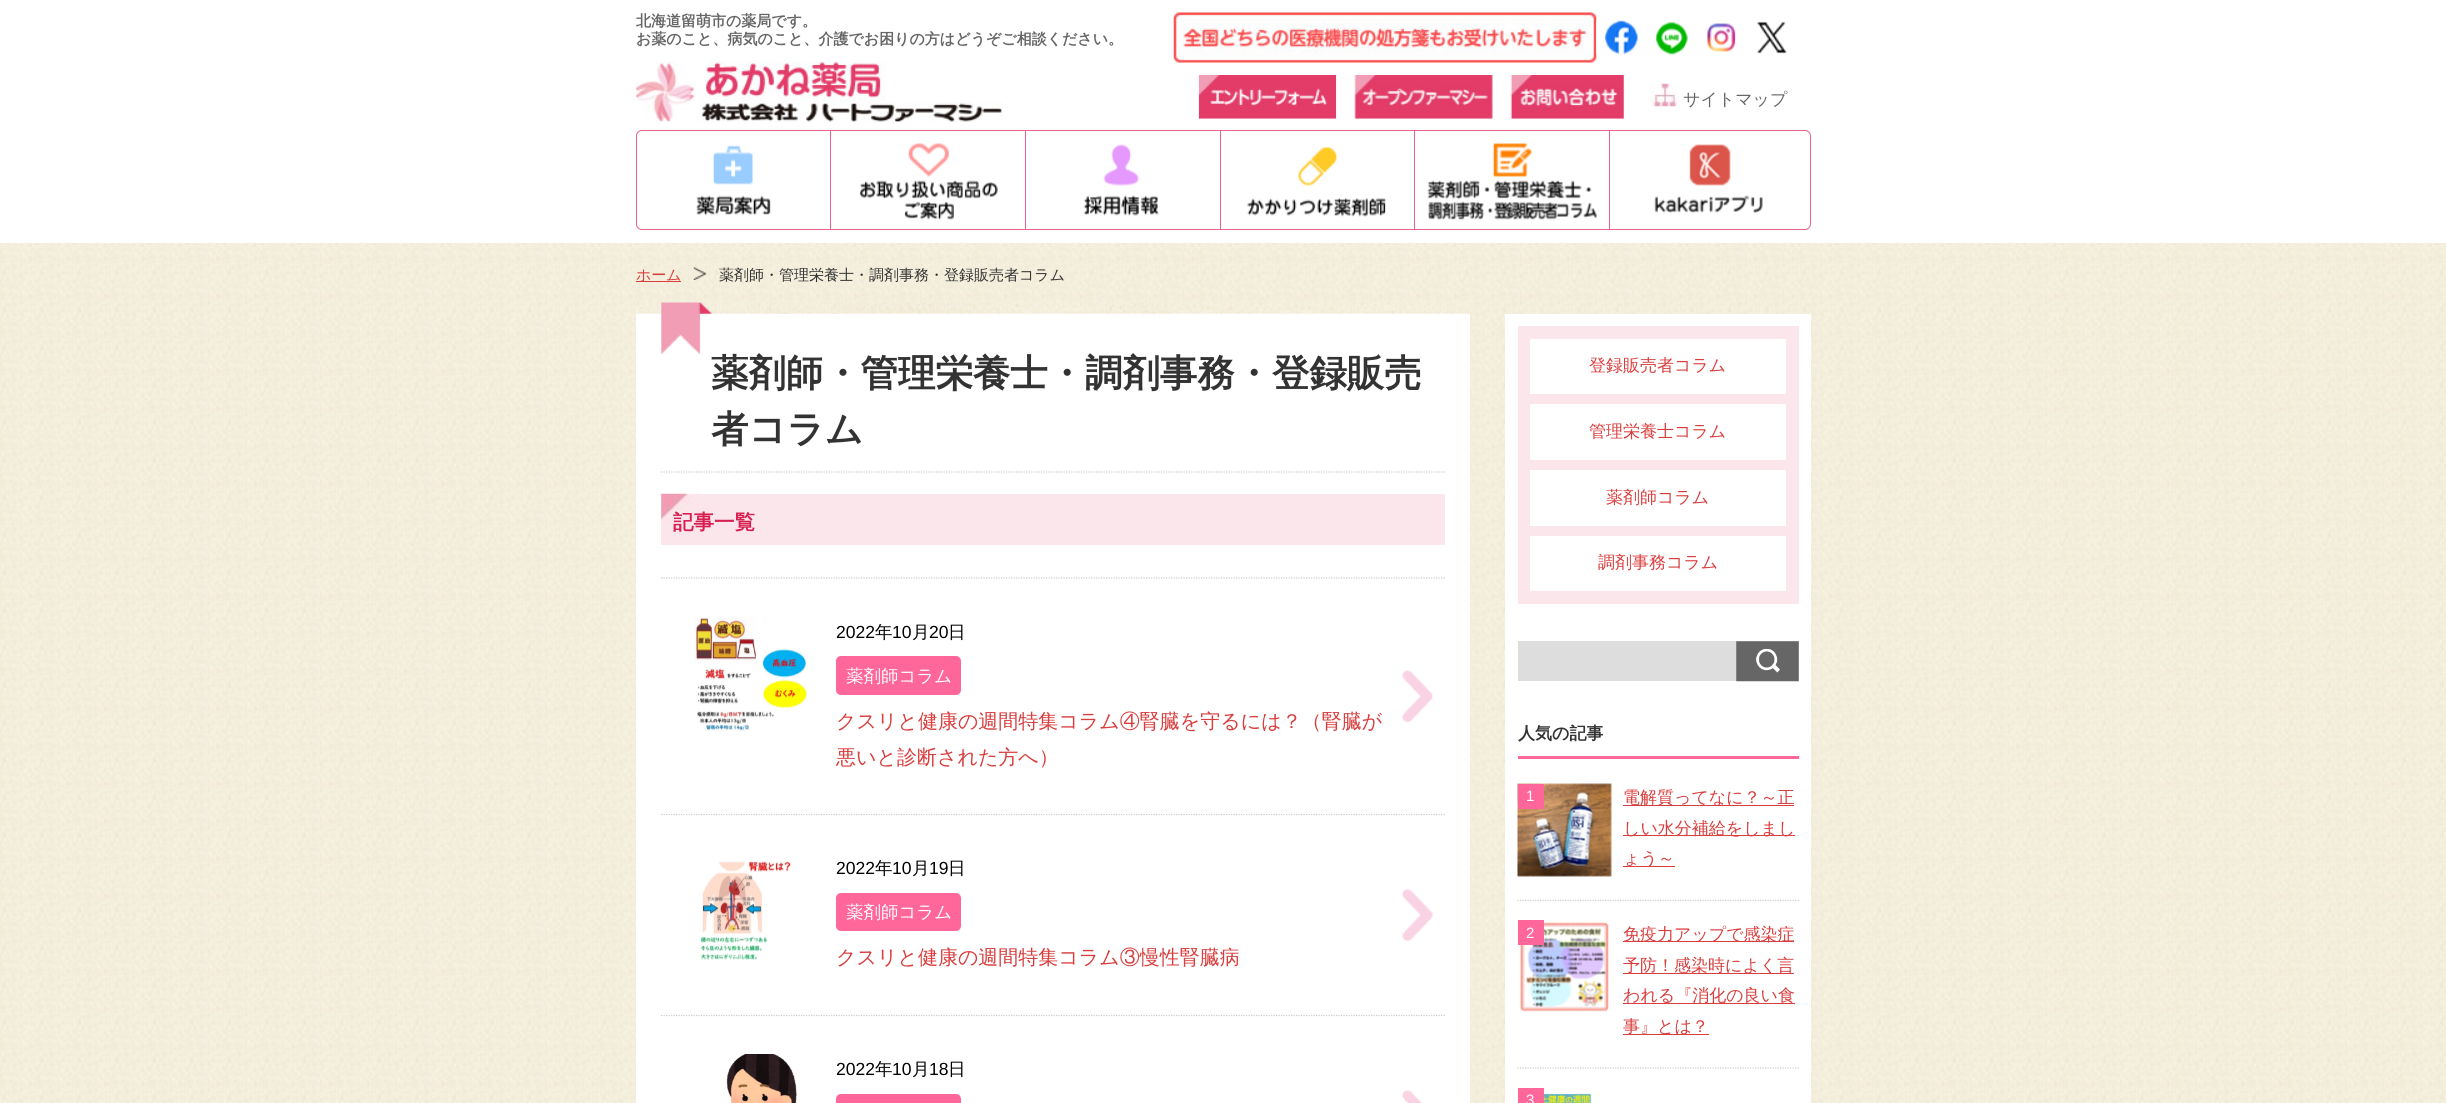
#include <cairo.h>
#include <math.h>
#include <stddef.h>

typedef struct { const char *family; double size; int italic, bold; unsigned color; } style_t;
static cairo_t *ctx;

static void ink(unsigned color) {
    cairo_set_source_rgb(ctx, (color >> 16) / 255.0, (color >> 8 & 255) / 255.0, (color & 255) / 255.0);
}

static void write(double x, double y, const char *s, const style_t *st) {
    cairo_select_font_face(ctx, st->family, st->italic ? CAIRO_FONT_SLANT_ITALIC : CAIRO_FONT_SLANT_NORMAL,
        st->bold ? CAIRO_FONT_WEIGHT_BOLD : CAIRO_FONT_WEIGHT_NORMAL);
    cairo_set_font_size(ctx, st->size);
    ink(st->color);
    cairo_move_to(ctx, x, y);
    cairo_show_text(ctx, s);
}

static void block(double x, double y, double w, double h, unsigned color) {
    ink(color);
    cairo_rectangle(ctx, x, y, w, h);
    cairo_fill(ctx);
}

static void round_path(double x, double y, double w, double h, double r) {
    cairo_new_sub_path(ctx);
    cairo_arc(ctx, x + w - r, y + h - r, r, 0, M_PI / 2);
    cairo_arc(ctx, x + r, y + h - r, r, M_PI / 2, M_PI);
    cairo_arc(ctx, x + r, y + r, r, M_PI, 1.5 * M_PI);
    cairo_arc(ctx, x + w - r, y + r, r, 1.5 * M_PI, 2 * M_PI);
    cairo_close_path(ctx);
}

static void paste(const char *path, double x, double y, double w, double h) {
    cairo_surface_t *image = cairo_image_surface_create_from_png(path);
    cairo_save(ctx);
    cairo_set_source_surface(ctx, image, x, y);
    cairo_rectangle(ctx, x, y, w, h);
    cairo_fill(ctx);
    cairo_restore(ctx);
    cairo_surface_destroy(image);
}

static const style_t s1 = {"WenQuanYi Zen Hei", 15, 0, 1, 0x666666};
static const style_t s2 = {"WenQuanYi Zen Hei Medium", 17, 0, 0, 0x666666};
static const style_t s3 = {"WenQuanYi Zen Hei Medium", 15, 0, 0, 0xd93d3d};
static const style_t s4 = {"WenQuanYi Zen Hei Medium", 15, 0, 0, 0x333333};
static const style_t s5 = {"WenQuanYi Zen Hei", 37.4, 0, 1, 0x333333};
static const style_t s6 = {"WenQuanYi Zen Hei", 20.5, 0, 1, 0xd81f52};
static const style_t s7 = {"Liberation Sans", 17.5, 0, 0, 0x000000};
static const style_t s8 = {"WenQuanYi Zen Hei Medium", 17.5, 0, 0, 0x000000};
static const style_t s9 = {"WenQuanYi Zen Hei Medium", 17.5, 0, 0, 0xffffff};
static const style_t s10 = {"WenQuanYi Zen Hei Medium", 20, 0, 0, 0xd93d3d};
static const style_t s11 = {"WenQuanYi Zen Hei Medium", 17, 0, 0, 0xd93d3d};
static const style_t s12 = {"WenQuanYi Zen Hei", 17, 0, 1, 0x333333};
static const style_t s13 = {"Liberation Sans", 15, 0, 0, 0xffffff};

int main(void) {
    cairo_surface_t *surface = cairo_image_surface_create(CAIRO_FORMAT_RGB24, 2446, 1103);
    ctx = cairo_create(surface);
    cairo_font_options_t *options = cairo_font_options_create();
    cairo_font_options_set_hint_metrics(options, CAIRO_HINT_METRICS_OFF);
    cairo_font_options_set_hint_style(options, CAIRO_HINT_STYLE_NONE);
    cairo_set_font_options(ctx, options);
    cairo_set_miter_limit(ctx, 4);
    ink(0xffffff);
    cairo_paint(ctx);
    paste("pic1.png", 0, 243, 2446, 860);
    write(636, 26, "北海道留萌市の薬局です。", &s1);
    write(636, 44, "お薬のこと、病気のこと、介護でお困りの方はどうぞご相談ください。", &s1);
    paste("pic2.png", 636, 61, 367, 61);
    paste("pic3.png", 1173, 12, 424, 51);
    paste("pic4.png", 1596, 20, 42, 35);
    paste("pic5.png", 1656, 21, 32, 34);
    paste("pic6.png", 1707, 23, 29, 29);
    paste("pic7.png", 1757, 21, 30, 33);
    paste("pic8.png", 1198, 75, 139, 44);
    paste("pic9.png", 1354, 75, 139, 44);
    paste("pic10.png", 1510, 75, 114, 44);
    paste("pic11.png", 1649, 83, 31, 24);
    write(1683, 105, "サイトマップ", &s2);
    round_path(636.5, 130.5, 1174, 99, 5.5);
    ink(0xe96186);
    cairo_set_line_width(ctx, 1);
    cairo_stroke(ctx);
    block(830, 131, 1, 98, 0xe96186);
    paste("pic12.png", 696, 145, 75, 71);
    block(1025, 131, 1, 98, 0xe96186);
    paste("pic13.png", 859, 143, 139, 77);
    block(1220, 131, 1, 98, 0xe96186);
    paste("pic14.png", 1083, 144, 76, 72);
    block(1414, 131, 1, 98, 0xe96186);
    paste("pic15.png", 1247, 146, 140, 71);
    block(1609, 131, 1, 98, 0xe96186);
    paste("pic16.png", 1427, 143, 170, 77);
    paste("pic17.png", 1654, 144, 109, 70);
    paste("pic18.png", 693, 267, 14, 13);
    block(636, 281, 45, 1, 0xd93d3d);
    write(636, 280, "ホーム", &s3);
    write(719, 280, "薬剤師・管理栄養士・調剤事務・登録販売者コラム", &s4);
    block(636, 303, 834, 800, 0xffffff);
    paste("pic19.png", 636, 302, 834, 52);
    cairo_new_path(ctx);
    cairo_move_to(ctx, 661, 472);
    cairo_line_to(ctx, 1445, 472);
    ink(0xcccccc);
    cairo_set_line_width(ctx, 1.2);
    cairo_set_dash(ctx, (double[]){1.25, 1.25}, 2, 0);
    cairo_stroke(ctx);
    write(711, 386, "薬剤師・管理栄養士・調剤事務・登録販売", &s5);
    write(711, 442, "者コラム", &s5);
    block(661, 494, 784, 51, 0xfbe6eb);
    paste("pic20.png", 661, 493, 39, 29);
    write(673, 529, "記事一覧", &s6);
    cairo_new_path(ctx);
    cairo_move_to(ctx, 661, 578);
    cairo_line_to(ctx, 1445, 578);
    ink(0xcccccc);
    cairo_stroke(ctx);
    cairo_new_path(ctx);
    cairo_move_to(ctx, 661, 814.5);
    cairo_line_to(ctx, 1445, 814.5);
    cairo_stroke(ctx);
    paste("pic21.png", 1402, 670, 31, 53);
    paste("pic22.png", 694, 617, 113, 115);
    write(836, 638, "2022", &s7);
    write(875, 638, "年", &s8);
    write(892, 638, "10", &s7);
    write(912, 638, "月", &s8);
    write(929, 638, "20", &s7);
    write(948, 638, "日", &s8);
    ink(0xff6699);
    round_path(836, 656, 125, 39, 5);
    cairo_fill(ctx);
    write(846, 682, "薬剤師コラム", &s9);
    write(836, 728, "クスリと健康の週間特集コラム④腎臓を守るには？（腎臓が", &s10);
    write(836, 764, "悪いと診断された方へ）", &s10);
    cairo_new_path(ctx);
    cairo_move_to(ctx, 661, 1015.5);
    cairo_line_to(ctx, 1445, 1015.5);
    ink(0xcccccc);
    cairo_stroke(ctx);
    paste("pic23.png", 1402, 888, 31, 54);
    paste("pic24.png", 700, 861, 91, 99);
    write(836, 874, "2022", &s7);
    write(875, 874, "年", &s8);
    write(892, 874, "10", &s7);
    write(912, 874, "月", &s8);
    write(929, 874, "19", &s7);
    write(948, 874, "日", &s8);
    ink(0xff6699);
    round_path(836, 893, 125, 38, 5);
    cairo_fill(ctx);
    write(846, 918, "薬剤師コラム", &s9);
    write(836, 964, "クスリと健康の週間特集コラム③慢性腎臓病", &s10);
    paste("pic25.png", 1402, 1090, 21, 13);
    paste("pic26.png", 726, 1054, 71, 49);
    write(836, 1075, "2022", &s7);
    write(875, 1075, "年", &s8);
    write(892, 1075, "10", &s7);
    write(912, 1075, "月", &s8);
    write(929, 1075, "18", &s7);
    write(948, 1075, "日", &s8);
    ink(0xff6699);
    round_path(836, 1094, 125, 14, 5);
    cairo_fill(ctx);
    block(1505, 314, 306, 789, 0xffffff);
    block(1518, 326, 281, 278, 0xfbe6eb);
    block(1530, 339, 256, 55, 0xffffff);
    write(1589, 371, "登録販売者コラム", &s11);
    block(1530, 404, 256, 56, 0xffffff);
    write(1589, 437, "管理栄養士コラム", &s11);
    block(1530, 470, 256, 56, 0xffffff);
    write(1606, 503, "薬剤師コラム", &s11);
    block(1530, 536, 256, 55, 0xffffff);
    write(1598, 568, "調剤事務コラム", &s11);
    block(1518, 641, 281, 40, 0xdddddd);
    paste("pic27.png", 1736, 641, 63, 41);
    block(1518, 756, 281, 3, 0xff6699);
    write(1518, 739, "人気の記事", &s12);
    cairo_new_path(ctx);
    cairo_move_to(ctx, 1517.5, 900.5);
    cairo_line_to(ctx, 1799, 900.5);
    ink(0xcccccc);
    cairo_stroke(ctx);
    paste("pic28.png", 1517, 783, 95, 94);
    block(1518, 784, 26, 25, 0xff6699);
    write(1526, 801, "1", &s13);
    block(1623, 805, 171, 1, 0xd93d3d);
    write(1623, 803, "電解質ってなに？～正", &s11);
    block(1623, 835, 172, 1, 0xd93d3d);
    write(1623, 834, "しい水分補給をしまし", &s11);
    block(1623, 866, 52, 1, 0xd93d3d);
    write(1623, 864, "ょう～", &s11);
    cairo_new_path(ctx);
    cairo_move_to(ctx, 1517.5, 1068);
    cairo_line_to(ctx, 1799, 1068);
    ink(0xcccccc);
    cairo_stroke(ctx);
    paste("pic29.png", 1519, 922, 90, 90);
    block(1518, 920, 26, 25, 0xff6699);
    write(1526, 938, "2", &s13);
    block(1623, 941, 171, 1, 0xd93d3d);
    write(1623, 940, "免疫力アップで感染症", &s11);
    block(1623, 973, 171, 1, 0xd93d3d);
    write(1623, 971, "予防！感染時によく言", &s11);
    block(1623, 1003, 172, 1, 0xd93d3d);
    write(1623, 1001, "われる『消化の良い食", &s11);
    block(1623, 1034, 86, 1, 0xd93d3d);
    write(1623, 1032, "事』とは？", &s11);
    block(1518, 1088, 26, 15, 0xff6699);
    write(1526, 1105, "3", &s13);
    paste("pic30.png", 1544, 1094, 48, 9);
    cairo_surface_write_to_png(surface, "screenshot.png");
    cairo_font_options_destroy(options);
    cairo_destroy(ctx);
    cairo_surface_destroy(surface);
    return 0;
}
